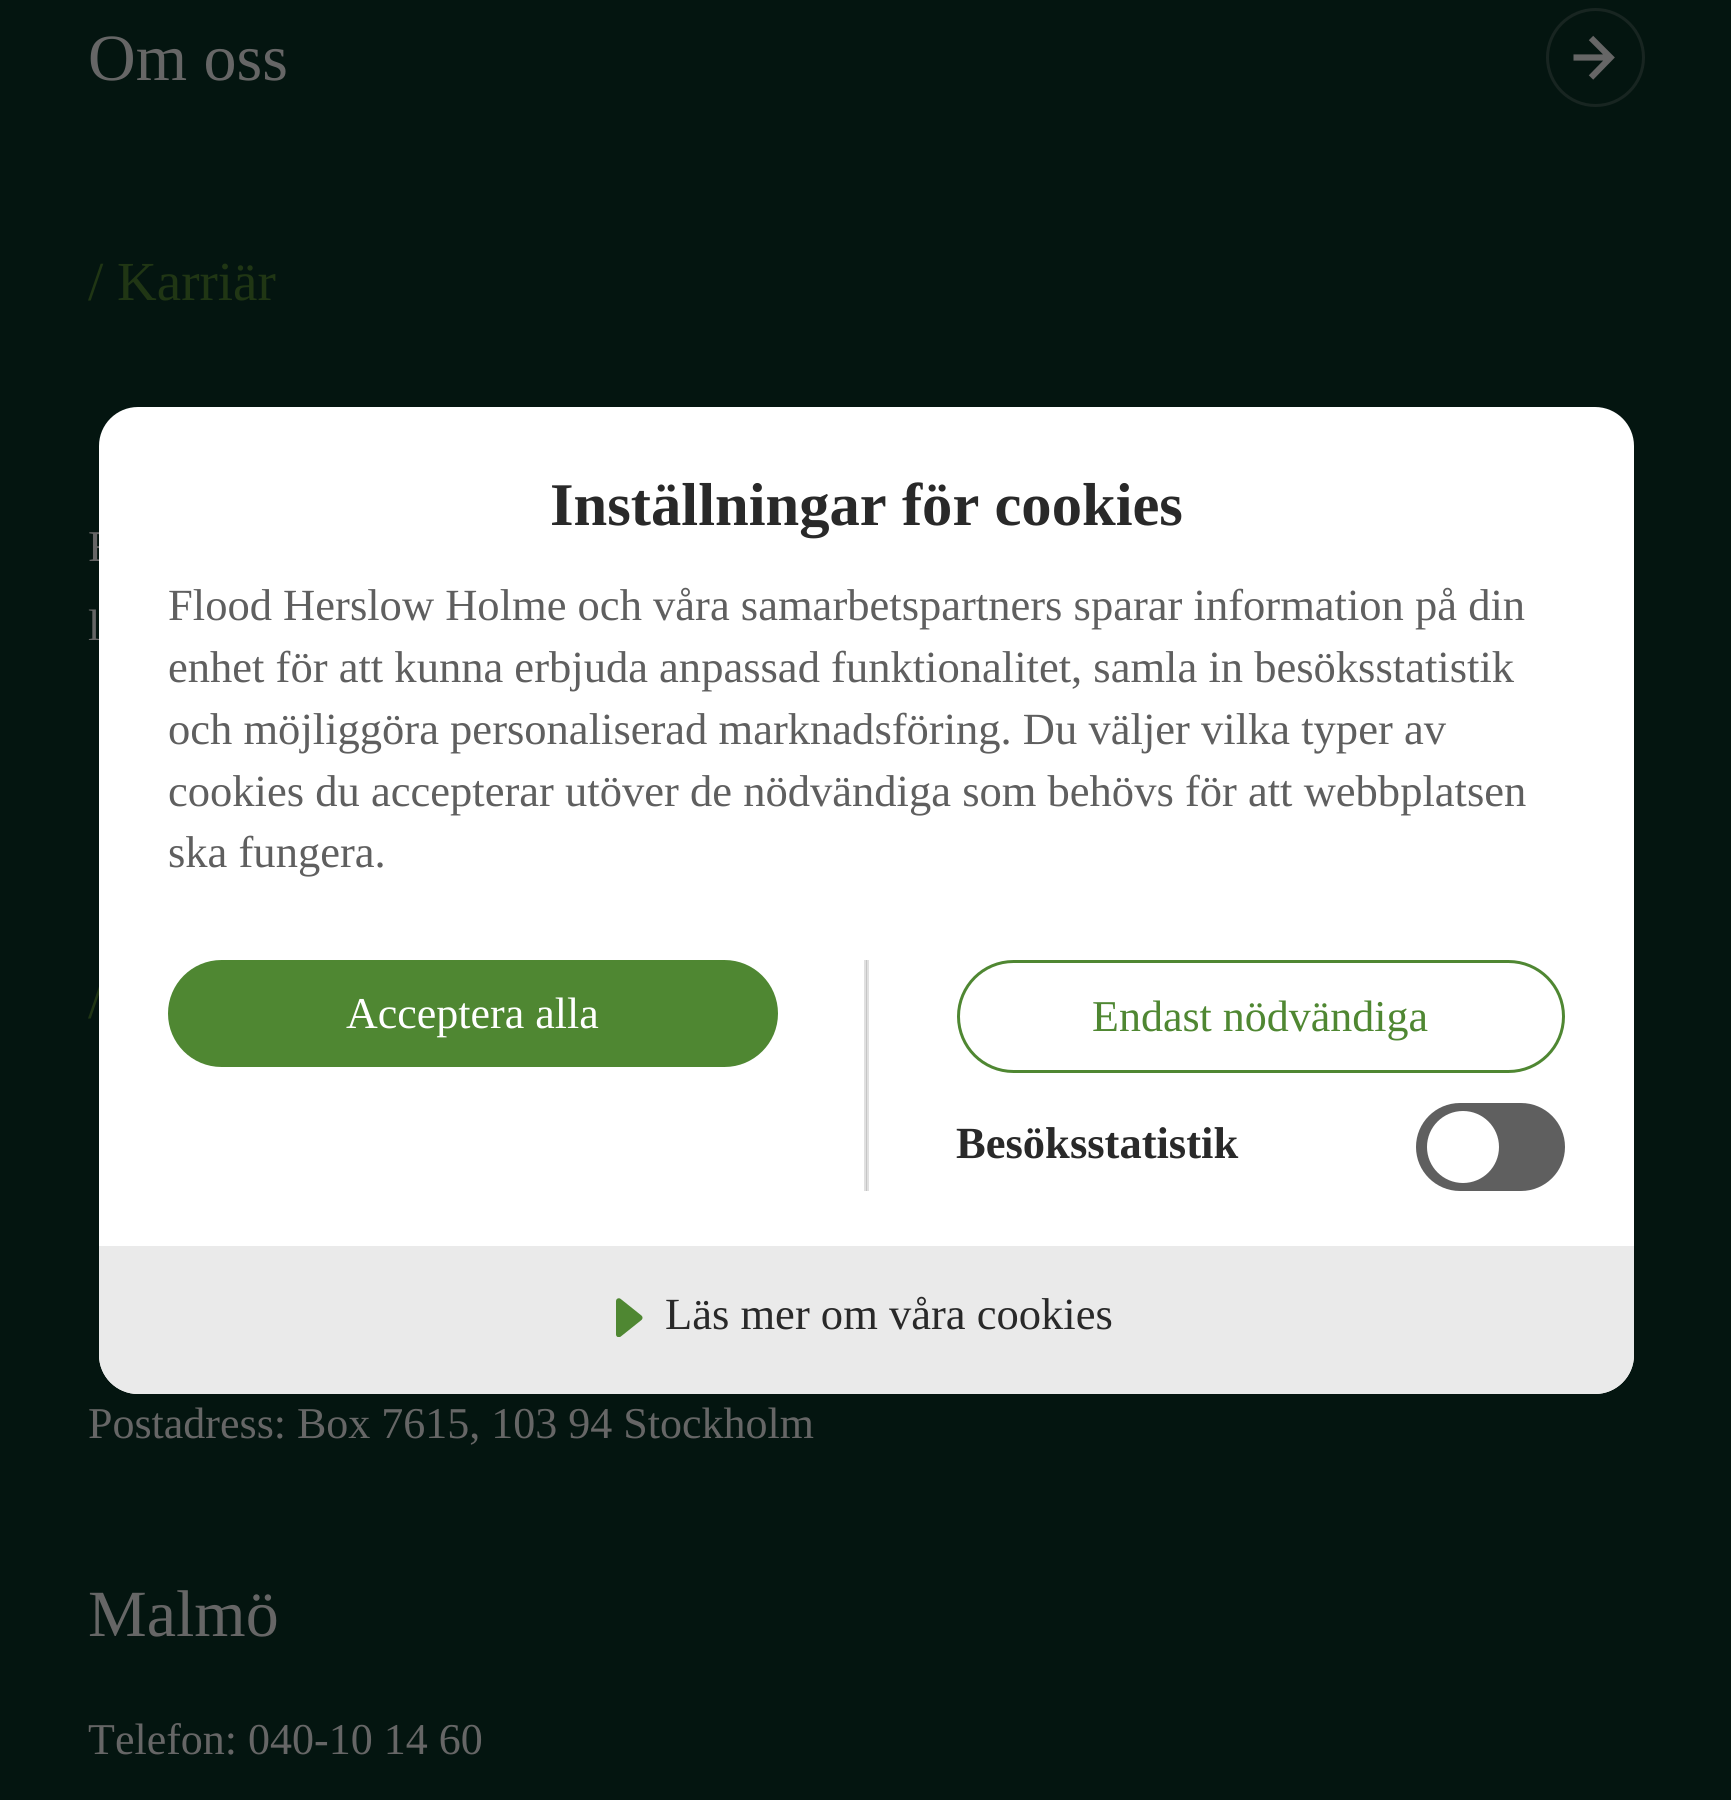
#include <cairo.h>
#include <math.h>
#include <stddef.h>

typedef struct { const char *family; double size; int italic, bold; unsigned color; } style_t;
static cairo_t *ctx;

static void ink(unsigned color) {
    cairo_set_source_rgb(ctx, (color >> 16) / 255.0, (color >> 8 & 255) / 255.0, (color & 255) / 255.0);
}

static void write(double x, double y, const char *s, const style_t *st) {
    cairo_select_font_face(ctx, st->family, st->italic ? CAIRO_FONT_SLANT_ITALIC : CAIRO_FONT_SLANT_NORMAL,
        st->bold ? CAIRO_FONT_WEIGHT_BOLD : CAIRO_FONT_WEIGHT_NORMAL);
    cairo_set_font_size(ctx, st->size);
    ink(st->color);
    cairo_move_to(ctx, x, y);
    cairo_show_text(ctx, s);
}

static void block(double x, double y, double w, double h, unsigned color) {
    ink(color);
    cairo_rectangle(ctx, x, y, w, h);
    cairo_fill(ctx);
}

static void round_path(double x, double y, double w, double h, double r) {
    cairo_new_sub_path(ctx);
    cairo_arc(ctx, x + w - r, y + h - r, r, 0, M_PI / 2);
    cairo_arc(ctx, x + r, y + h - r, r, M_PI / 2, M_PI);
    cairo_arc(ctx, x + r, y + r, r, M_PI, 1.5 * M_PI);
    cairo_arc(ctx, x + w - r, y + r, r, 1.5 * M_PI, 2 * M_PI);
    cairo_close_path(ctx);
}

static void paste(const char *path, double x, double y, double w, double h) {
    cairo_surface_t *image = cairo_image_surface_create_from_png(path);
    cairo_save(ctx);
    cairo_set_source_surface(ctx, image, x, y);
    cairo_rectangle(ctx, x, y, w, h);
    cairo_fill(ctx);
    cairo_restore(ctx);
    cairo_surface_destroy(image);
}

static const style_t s1 = {"Liberation Serif", 66, 0, 0, 0x666666};
static const style_t s2 = {"Liberation Serif", 55, 0, 0, 0x203614};
static const style_t s3 = {"Liberation Serif", 44, 0, 0, 0x666666};
static const style_t s4 = {"Liberation Serif", 60.6, 0, 1, 0x292929};
static const style_t s5 = {"Liberation Serif", 44.55, 0, 0, 0x5f5f5f};
static const style_t s6 = {"Liberation Serif", 44, 0, 0, 0xffffff};
static const style_t s7 = {"Liberation Serif", 44, 0, 0, 0x4f8732};
static const style_t s8 = {"Liberation Serif", 44.55, 0, 1, 0x292929};
static const style_t s9 = {"Liberation Serif", 44.55, 0, 0, 0x292929};

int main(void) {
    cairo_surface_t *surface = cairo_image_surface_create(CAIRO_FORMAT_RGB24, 1731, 1800);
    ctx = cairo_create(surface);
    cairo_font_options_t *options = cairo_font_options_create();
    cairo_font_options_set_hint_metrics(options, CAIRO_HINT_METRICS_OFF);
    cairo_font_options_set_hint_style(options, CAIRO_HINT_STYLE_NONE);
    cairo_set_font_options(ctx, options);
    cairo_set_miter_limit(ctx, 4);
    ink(0x041510);
    cairo_paint(ctx);
    write(88, 80, "Om oss", &s1);
    cairo_new_path(ctx);
    cairo_arc(ctx, 1595.5, 57.5, 48, 0, 2 * M_PI);
    ink(0x182521);
    cairo_set_line_width(ctx, 3);
    cairo_stroke(ctx);
    cairo_new_path(ctx);
    cairo_move_to(ctx, 1591, 38);
    cairo_line_to(ctx, 1610.5, 57.5);
    cairo_line_to(ctx, 1591, 77.5);
    cairo_move_to(ctx, 1607.5, 57.5);
    cairo_line_to(ctx, 1573.5, 57.5);
    ink(0x666666);
    cairo_set_line_width(ctx, 6.2);
    cairo_stroke(ctx);
    write(88, 300, "/ Karriär", &s2);
    write(88, 561, "F", &s3);
    write(88, 640, "l", &s3);
    write(88, 1018, "/", &s2);
    write(88, 1438, "Postadress: Box 7615, 103 94 Stockholm", &s3);
    write(88, 1636, "Malmö", &s1);
    write(88, 1754, "Telefon: 040-10 14 60", &s3);
    ink(0xffffff);
    round_path(99, 407, 1535, 987, 39);
    cairo_fill(ctx);
    block(867, 960, 2, 231, 0xe0e0e0);
    write(550, 525, "Inställningar för cookies", &s4);
    write(168, 620, "Flood Herslow Holme och våra samarbetspartners sparar information på din", &s5);
    write(168, 682, "enhet för att kunna erbjuda anpassad funktionalitet, samla in besöksstatistik", &s5);
    write(168, 744, "och möjliggöra personaliserad marknadsföring. Du väljer vilka typer av", &s5);
    write(168, 806, "cookies du accepterar utöver de nödvändiga som behövs för att webbplatsen", &s5);
    write(168, 867, "ska fungera.", &s5);
    block(864, 960, 2, 231, 0xe0e0e0);
    block(866, 960, 1, 231, 0xc5c5c5);
    ink(0x4f8732);
    round_path(168, 960, 610, 107, 53.5);
    cairo_fill(ctx);
    write(346, 1028, "Acceptera alla", &s6);
    round_path(958.5, 961.5, 605, 110, 55);
    ink(0x4f8732);
    cairo_set_line_width(ctx, 3);
    cairo_stroke(ctx);
    write(1092, 1031, "Endast nödvändiga", &s7);
    write(956, 1158, "Besöksstatistik", &s8);
    ink(0x5f5f5f);
    round_path(1416, 1103, 149, 88, 44);
    cairo_fill(ctx);
    ink(0xffffff);
    cairo_arc(ctx, 1463, 1147, 36, 0, 2 * M_PI);
    cairo_fill(ctx);
    ink(0xeaeaea);
    cairo_new_path(ctx);
    cairo_move_to(ctx, 99, 1246);
    cairo_line_to(ctx, 1634, 1246);
    cairo_line_to(ctx, 1634, 1355);
    cairo_curve_to(ctx, 1634, 1376.5, 1616.5, 1394, 1595, 1394);
    cairo_line_to(ctx, 138, 1394);
    cairo_curve_to(ctx, 116.5, 1394, 99, 1376.5, 99, 1355);
    cairo_close_path(ctx);
    cairo_fill(ctx);
    paste("pic1.png", 616, 1298, 27, 39);
    write(665, 1329, "Läs mer om våra cookies", &s9);
    cairo_surface_write_to_png(surface, "screenshot.png");
    cairo_font_options_destroy(options);
    cairo_destroy(ctx);
    cairo_surface_destroy(surface);
    return 0;
}
